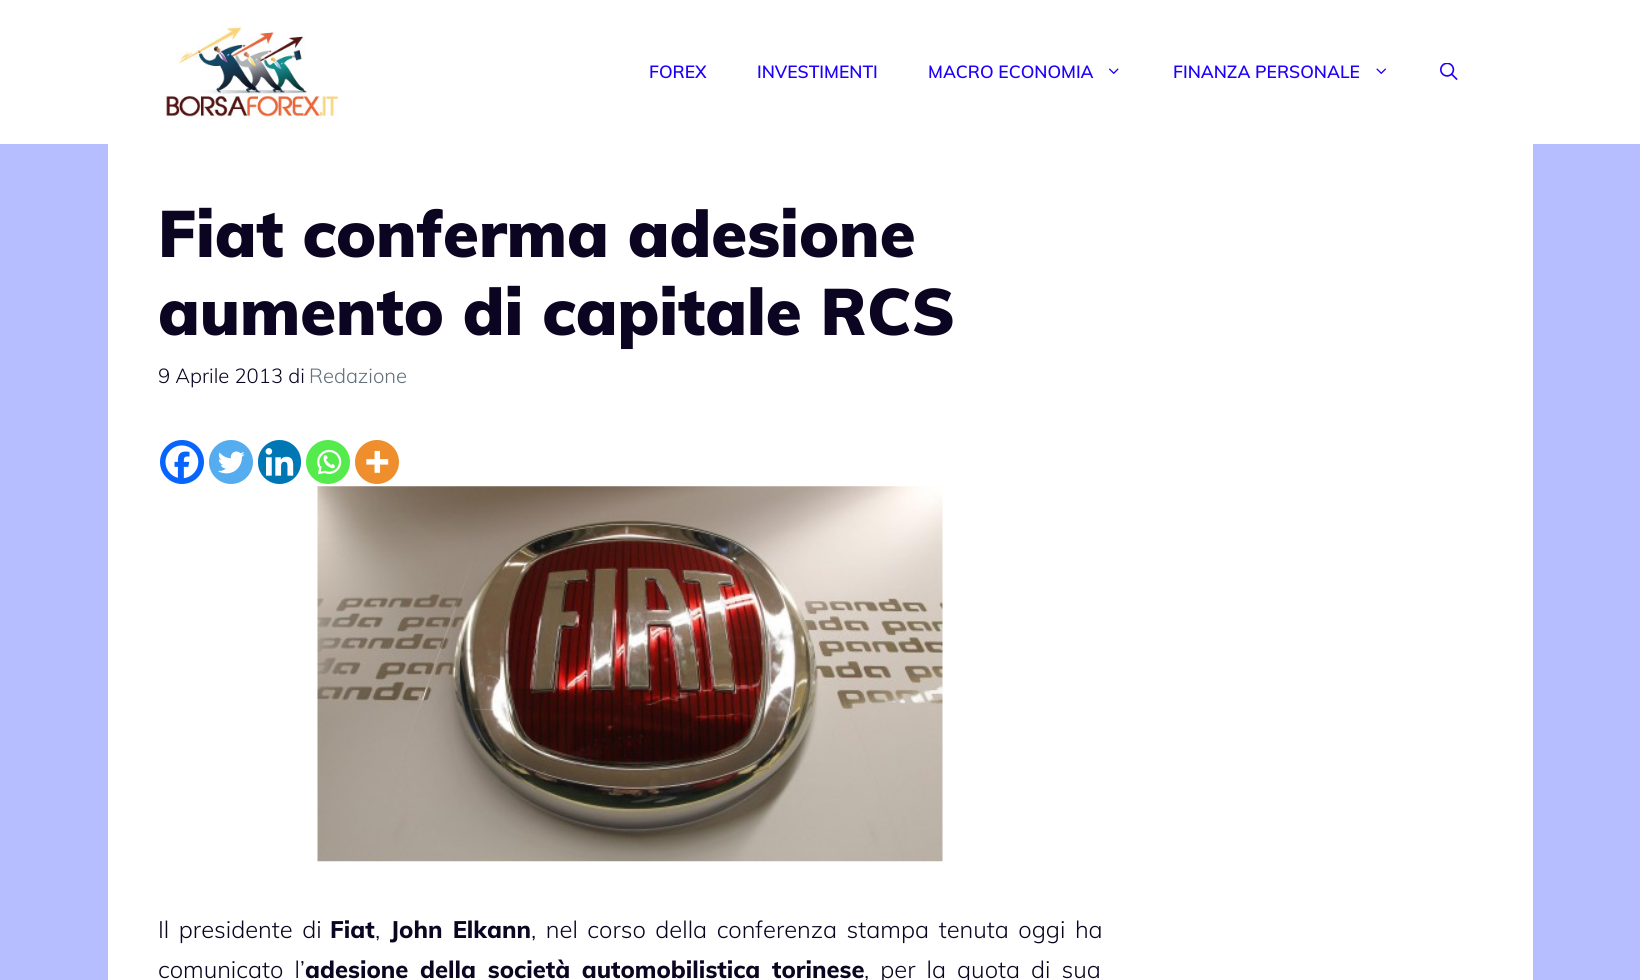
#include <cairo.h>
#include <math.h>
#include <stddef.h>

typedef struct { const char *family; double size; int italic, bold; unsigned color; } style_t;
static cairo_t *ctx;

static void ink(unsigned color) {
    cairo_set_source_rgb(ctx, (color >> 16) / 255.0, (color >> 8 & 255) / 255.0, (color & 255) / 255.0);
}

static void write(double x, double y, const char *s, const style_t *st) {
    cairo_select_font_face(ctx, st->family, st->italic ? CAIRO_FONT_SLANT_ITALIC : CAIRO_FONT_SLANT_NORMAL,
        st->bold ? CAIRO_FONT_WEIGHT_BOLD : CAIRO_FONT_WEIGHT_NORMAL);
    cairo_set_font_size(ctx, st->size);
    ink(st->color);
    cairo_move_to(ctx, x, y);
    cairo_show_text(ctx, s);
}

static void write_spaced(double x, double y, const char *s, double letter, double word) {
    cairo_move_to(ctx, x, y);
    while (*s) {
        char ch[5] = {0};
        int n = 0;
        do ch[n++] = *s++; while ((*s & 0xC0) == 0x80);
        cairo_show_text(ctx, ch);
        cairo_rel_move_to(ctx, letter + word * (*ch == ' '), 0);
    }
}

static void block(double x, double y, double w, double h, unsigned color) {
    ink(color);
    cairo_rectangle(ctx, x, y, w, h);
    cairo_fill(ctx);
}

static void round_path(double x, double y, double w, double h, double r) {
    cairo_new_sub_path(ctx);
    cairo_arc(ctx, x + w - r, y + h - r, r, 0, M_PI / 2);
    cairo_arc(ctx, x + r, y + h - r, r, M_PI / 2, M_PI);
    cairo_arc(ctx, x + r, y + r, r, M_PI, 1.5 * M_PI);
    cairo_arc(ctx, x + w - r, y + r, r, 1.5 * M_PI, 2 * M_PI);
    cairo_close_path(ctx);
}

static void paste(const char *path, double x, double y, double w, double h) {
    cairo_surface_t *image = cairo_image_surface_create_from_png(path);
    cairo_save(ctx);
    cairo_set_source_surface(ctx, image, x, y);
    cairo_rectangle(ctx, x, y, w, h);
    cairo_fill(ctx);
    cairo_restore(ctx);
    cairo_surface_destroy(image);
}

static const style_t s1 = {"Muli SemiBold", 17.5, 0, 0, 0x1d00fc};
static const style_t s2 = {"Muli Black", 65, 0, 0, 0x0b0521};
static const style_t s3 = {"Muli Light", 20.25, 0, 0, 0x0b0521};
static const style_t s4 = {"Muli Light", 20.25, 0, 0, 0x62707c};
static const style_t s5 = {"Muli ExtraBold", 23.75, 0, 0, 0x0b0521};
static const style_t s6 = {"Muli Light", 23.75, 0, 0, 0x0b0521};

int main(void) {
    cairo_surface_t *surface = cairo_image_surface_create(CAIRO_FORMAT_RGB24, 1640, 980);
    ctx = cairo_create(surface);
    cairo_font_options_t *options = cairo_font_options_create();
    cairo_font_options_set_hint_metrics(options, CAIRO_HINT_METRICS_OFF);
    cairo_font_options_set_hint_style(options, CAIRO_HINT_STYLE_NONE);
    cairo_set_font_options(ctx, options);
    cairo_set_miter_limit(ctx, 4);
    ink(0xb7beff);
    cairo_paint(ctx);
    block(0, 0, 1640, 144, 0xffffff);
    paste("pic1.png", 164, 25, 174, 94);
    write(649, 78, "FOREX", &s1);
    write(757, 78, "INVESTIMENTI", &s1);
    write(928, 78, "MACRO ECONOMIA", &s1);
    paste("pic2.png", 1108, 68, 11, 6);
    write(1173, 78, "FINANZA PERSONALE", &s1);
    paste("pic3.png", 1376, 68, 10, 6);
    paste("pic4.png", 1440, 63, 18, 17);
    block(108, 144, 1425, 836, 0xffffff);
    write(158, 257, "Fiat conferma adesione", &s2);
    write(158, 335, "aumento di capitale RCS", &s2);
    write(158, 383, "9 Aprile 2013 di", &s3);
    write(309, 383, "Redazione", &s4);
    ink(0x0765fe);
    cairo_new_path(ctx);
    cairo_arc(ctx, 182, 462, 22, 0, 2 * M_PI);
    cairo_fill(ctx);
    paste("pic5.png", 165, 445, 34, 34);
    ink(0x55acee);
    cairo_arc(ctx, 231, 462, 22, 0, 2 * M_PI);
    cairo_fill(ctx);
    paste("pic6.png", 218, 451, 27, 23);
    ink(0x0077b5);
    round_path(258, 440, 43, 44, 21.5);
    cairo_fill(ctx);
    paste("pic7.png", 265, 448, 29, 28);
    ink(0x55eb4c);
    cairo_arc(ctx, 328, 462, 22, 0, 2 * M_PI);
    cairo_fill(ctx);
    paste("pic8.png", 317, 449, 25, 26);
    ink(0xee8e2d);
    cairo_arc(ctx, 377, 462, 22, 0, 2 * M_PI);
    cairo_fill(ctx);
    paste("pic9.png", 366, 450, 23, 23);
    paste("pic10.png", 317, 486, 626, 376);
    cairo_set_font_size(ctx, 23.75);
    ink(0x0b0521);
    write_spaced(158, 938, "Il presidente di", 0, 3.5);
    write(330, 938, "Fiat", &s5);
    write(375, 938, ",", &s6);
    cairo_select_font_face(ctx, "Muli ExtraBold", CAIRO_FONT_SLANT_NORMAL, CAIRO_FONT_WEIGHT_NORMAL);
    write_spaced(390, 938, "John Elkann", 0, 3.5);
    cairo_select_font_face(ctx, "Muli Light", CAIRO_FONT_SLANT_NORMAL, CAIRO_FONT_WEIGHT_NORMAL);
    write_spaced(531, 938, ", nel corso della conferenza stampa tenuta oggi ha", 0, 3.5);
    write_spaced(158, 978, "comunicato l’", 0, 5);
    cairo_select_font_face(ctx, "Muli ExtraBold", CAIRO_FONT_SLANT_NORMAL, CAIRO_FONT_WEIGHT_NORMAL);
    write_spaced(305, 978, "adesione della società automobilistica torinese", 0, 5);
    cairo_select_font_face(ctx, "Muli Light", CAIRO_FONT_SLANT_NORMAL, CAIRO_FONT_WEIGHT_NORMAL);
    write_spaced(864, 978, ", per la quota di sua", 0, 5);
    cairo_surface_write_to_png(surface, "screenshot.png");
    cairo_font_options_destroy(options);
    cairo_destroy(ctx);
    cairo_surface_destroy(surface);
    return 0;
}
